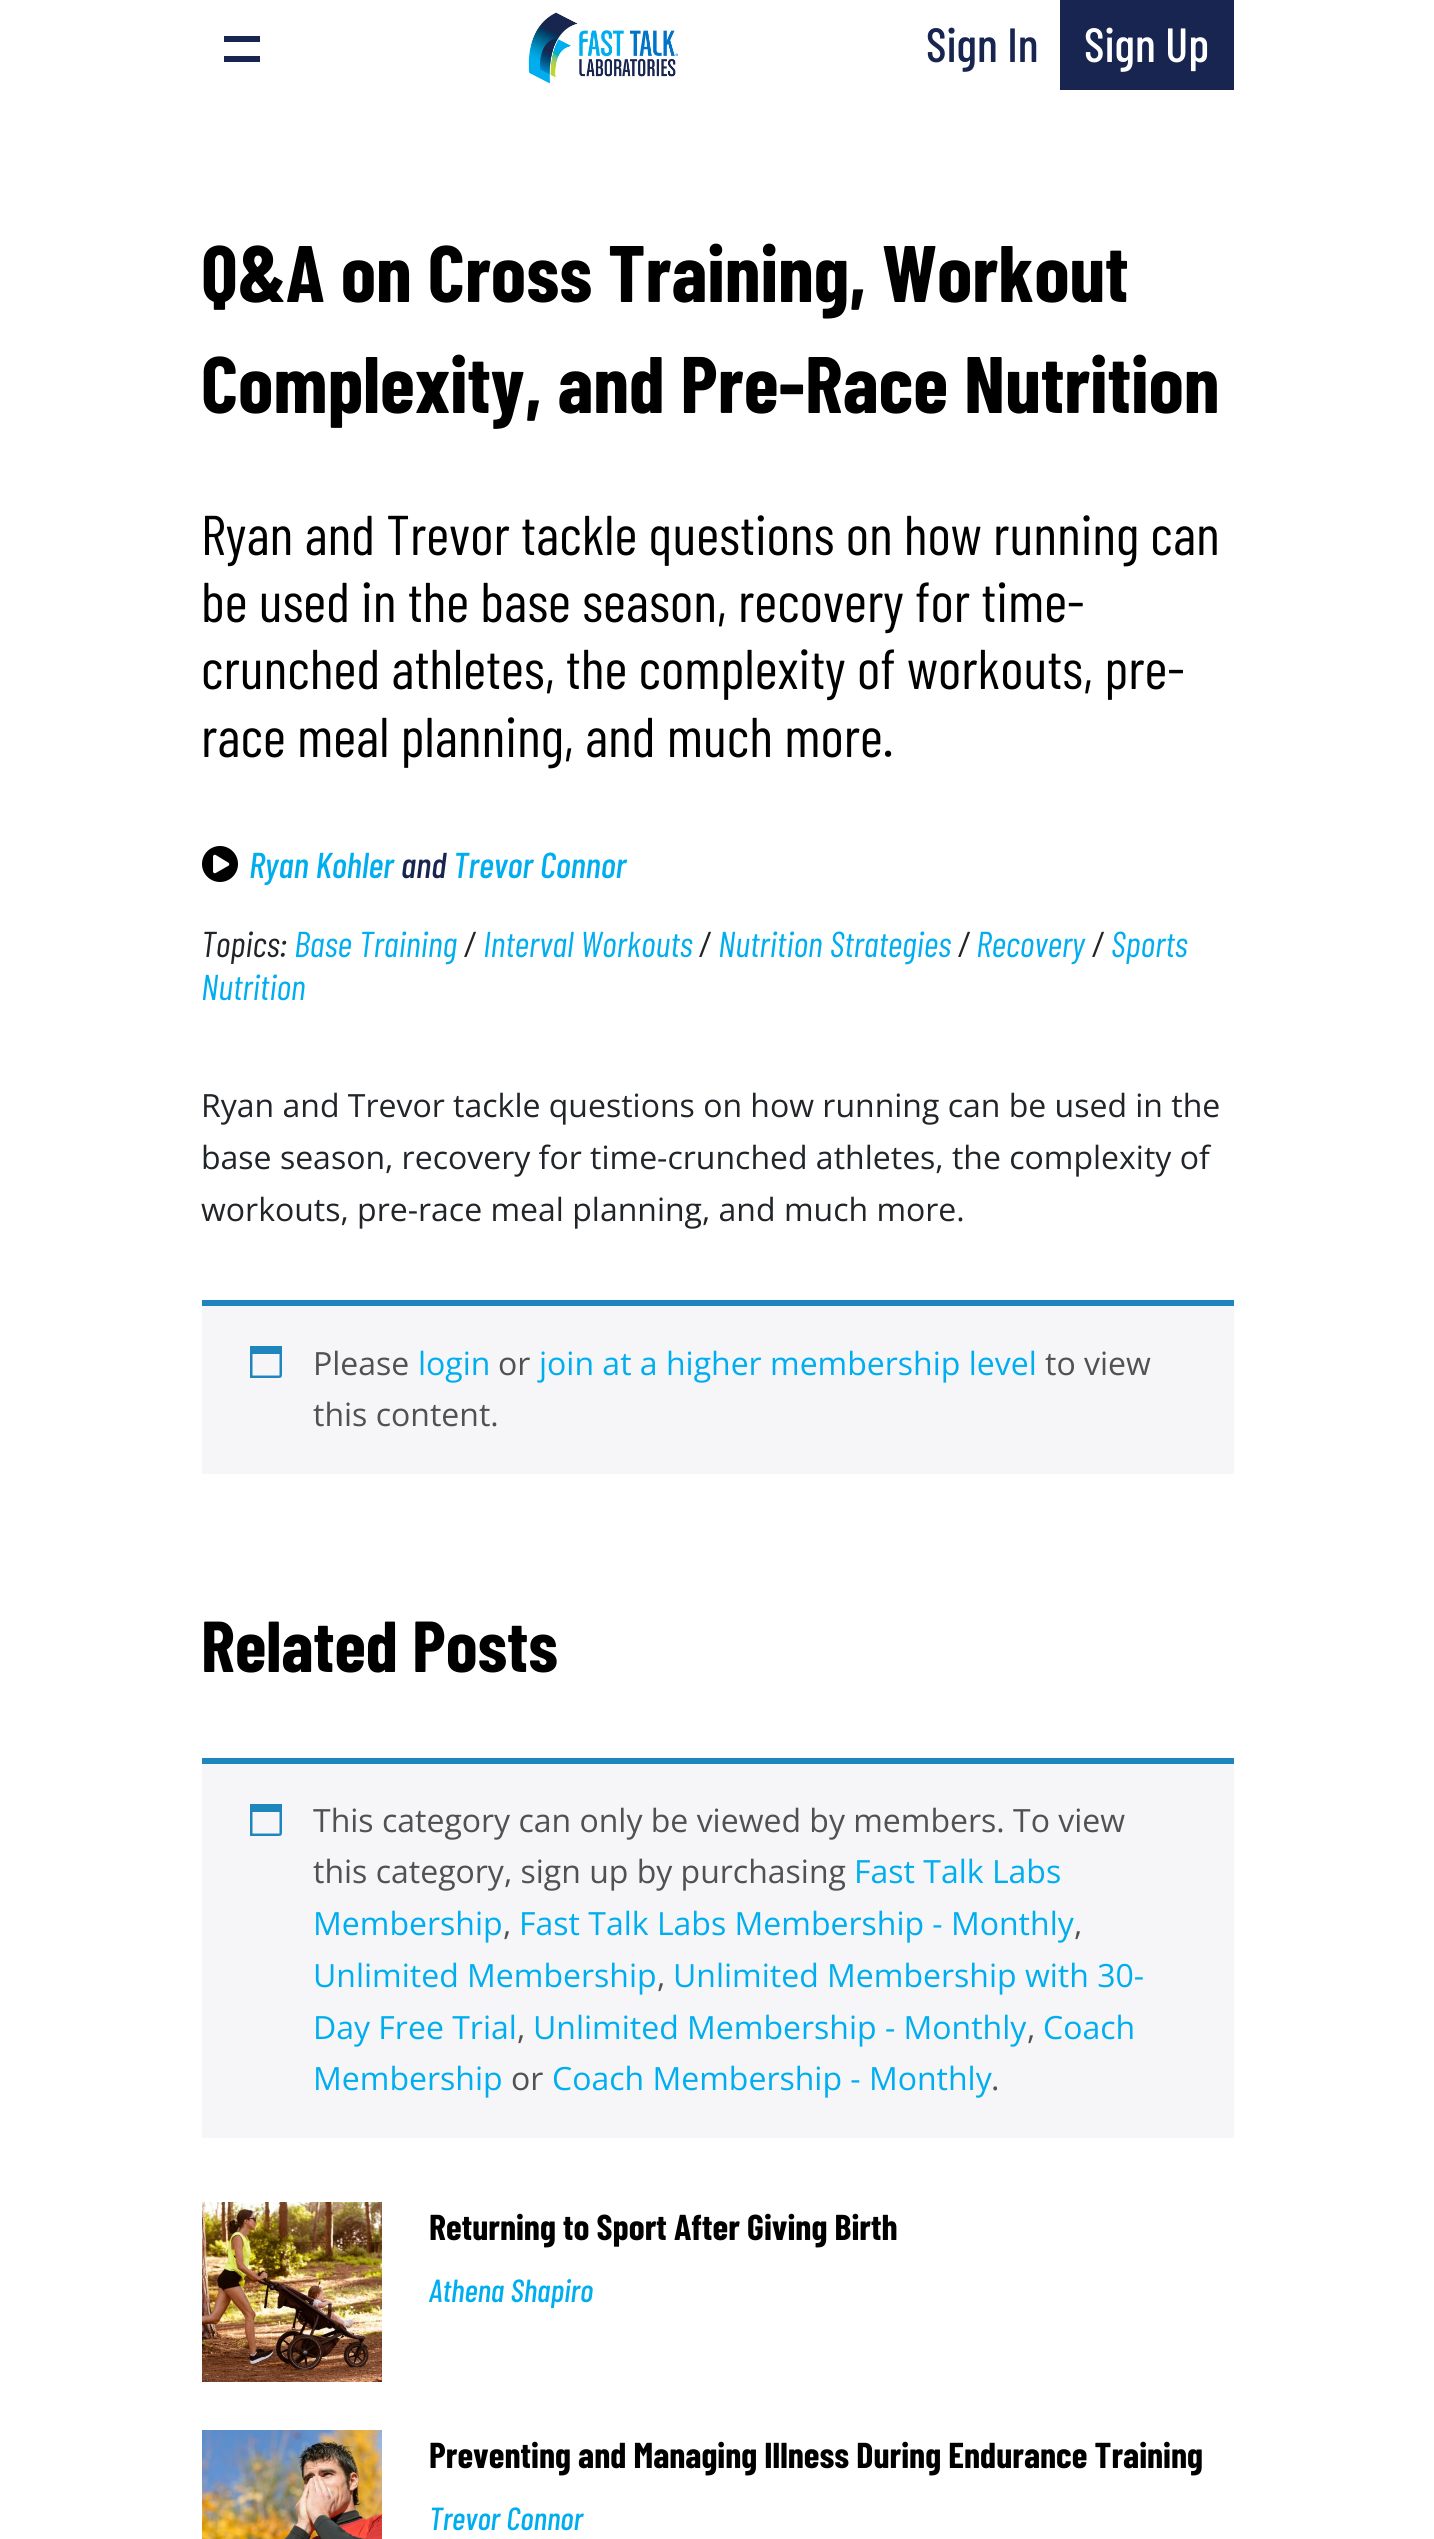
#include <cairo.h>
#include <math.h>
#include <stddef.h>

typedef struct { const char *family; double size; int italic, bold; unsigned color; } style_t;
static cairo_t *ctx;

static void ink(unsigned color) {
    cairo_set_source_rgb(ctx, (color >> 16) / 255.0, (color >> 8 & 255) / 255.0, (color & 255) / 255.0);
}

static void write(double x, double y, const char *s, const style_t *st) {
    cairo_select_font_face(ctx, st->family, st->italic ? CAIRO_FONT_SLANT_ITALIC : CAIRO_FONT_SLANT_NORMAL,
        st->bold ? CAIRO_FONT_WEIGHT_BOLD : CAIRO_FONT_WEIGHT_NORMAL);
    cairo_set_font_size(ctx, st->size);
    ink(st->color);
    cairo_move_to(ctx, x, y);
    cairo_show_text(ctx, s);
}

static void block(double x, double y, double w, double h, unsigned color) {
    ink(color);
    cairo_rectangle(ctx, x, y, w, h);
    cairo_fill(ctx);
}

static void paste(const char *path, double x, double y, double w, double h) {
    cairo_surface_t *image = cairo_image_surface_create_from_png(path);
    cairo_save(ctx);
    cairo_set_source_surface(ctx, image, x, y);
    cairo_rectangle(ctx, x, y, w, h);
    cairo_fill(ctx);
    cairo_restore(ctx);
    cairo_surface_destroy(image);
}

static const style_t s1 = {"Barlow Condensed Medium", 48, 0, 0, 0x182550};
static const style_t s2 = {"Barlow Condensed Medium", 48, 0, 0, 0xffffff};
static const style_t s3 = {"Barlow Condensed", 80, 0, 1, 0x000000};
static const style_t s4 = {"Barlow Condensed", 56, 0, 0, 0x000000};
static const style_t s5 = {"Barlow Condensed Medium", 36, 1, 0, 0x00aeef};
static const style_t s6 = {"Barlow Condensed Medium", 36, 1, 0, 0x182550};
static const style_t s7 = {"Barlow Condensed", 36, 1, 0, 0x212529};
static const style_t s8 = {"Barlow Condensed", 36, 1, 0, 0x00aeef};
static const style_t s9 = {"Open Sans", 32, 0, 0, 0x212529};
static const style_t s10 = {"Open Sans", 32, 0, 0, 0x515151};
static const style_t s11 = {"Open Sans", 32, 0, 0, 0x00aeef};
static const style_t s12 = {"Barlow Condensed", 72, 0, 1, 0x000000};
static const style_t s13 = {"Barlow Condensed", 36, 0, 1, 0x000000};
static const style_t s14 = {"Barlow Condensed Medium", 32, 1, 0, 0x00aeef};

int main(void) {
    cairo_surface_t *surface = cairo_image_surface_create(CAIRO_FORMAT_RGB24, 1434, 2539);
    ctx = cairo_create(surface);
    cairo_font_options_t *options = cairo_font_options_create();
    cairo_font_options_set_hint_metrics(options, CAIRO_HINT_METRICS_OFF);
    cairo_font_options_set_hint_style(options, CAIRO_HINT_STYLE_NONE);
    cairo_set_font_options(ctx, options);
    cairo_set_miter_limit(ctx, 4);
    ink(0xffffff);
    cairo_paint(ctx);
    block(224, 36, 36, 6, 0x182550);
    block(224, 56, 36, 6, 0x182550);
    paste("pic1.png", 528, 12, 150, 72);
    write(926, 62, "Sign In", &s1);
    block(1060, 0, 174, 90, 0x182550);
    write(1084, 62, "Sign Up", &s2);
    write(201, 302, "Q&A on Cross Training, Workout", &s3);
    write(201, 413, "Complexity, and Pre-Race Nutrition", &s3);
    write(201, 555, "Ryan and Trevor tackle questions on how running can", &s4);
    write(201, 622, "be used in the base season, recovery for time-", &s4);
    write(201, 689, "crunched athletes, the complexity of workouts, pre-", &s4);
    write(201, 757, "race meal planning, and much more.", &s4);
    paste("pic2.png", 202, 846, 36, 36);
    write(249, 878, "Ryan Kohler", &s5);
    write(401, 878, "and", &s6);
    write(453, 878, "Trevor Connor", &s5);
    write(201, 957, "Topics:", &s7);
    write(294, 957, "Base Training", &s8);
    write(464, 957, "/", &s7);
    write(483, 957, "Interval Workouts", &s8);
    write(699, 957, "/", &s7);
    write(718, 957, "Nutrition Strategies", &s8);
    write(958, 957, "/", &s7);
    write(976, 957, "Recovery", &s8);
    write(1092, 957, "/", &s7);
    write(1111, 957, "Sports", &s8);
    write(201, 1000, "Nutrition", &s8);
    write(201, 1117, "Ryan and Trevor tackle questions on how running can be used in the", &s9);
    write(201, 1169, "base season, recovery for time-crunched athletes, the complexity of", &s9);
    write(201, 1221, "workouts, pre-race meal planning, and much more.", &s9);
    block(202, 1306, 1032, 168, 0xf6f5f8);
    block(202, 1300, 1032, 6, 0x1e85be);
    cairo_new_path(ctx);
    cairo_move_to(ctx, 279.5, 1354);
    cairo_line_to(ctx, 252.5, 1354);
    cairo_line_to(ctx, 252.5, 1375.5);
    cairo_line_to(ctx, 279.5, 1375.5);
    cairo_close_path(ctx);
    cairo_move_to(ctx, 282, 1346);
    cairo_line_to(ctx, 282, 1370.5);
    cairo_curve_to(ctx, 282, 1378.5, 282.5, 1378, 274.5, 1378);
    cairo_line_to(ctx, 250, 1378);
    cairo_line_to(ctx, 250, 1346);
    cairo_close_path(ctx);
    cairo_fill(ctx);
    write(313, 1375, "Please", &s10);
    write(418, 1375, "login", &s11);
    write(498, 1375, "or", &s10);
    write(539, 1375, "join at a higher membership level", &s11);
    write(1045, 1375, "to view", &s10);
    write(313, 1426, "this content.", &s10);
    write(201, 1672, "Related Posts", &s12);
    block(202, 1764, 1032, 374, 0xf6f5f8);
    block(202, 1758, 1032, 6, 0x1e85be);
    cairo_new_path(ctx);
    cairo_move_to(ctx, 279.5, 1812);
    cairo_line_to(ctx, 252.5, 1812);
    cairo_line_to(ctx, 252.5, 1833.5);
    cairo_line_to(ctx, 279.5, 1833.5);
    cairo_close_path(ctx);
    cairo_move_to(ctx, 282, 1804);
    cairo_line_to(ctx, 282, 1828.5);
    cairo_curve_to(ctx, 282, 1836.5, 282.5, 1836, 274.5, 1836);
    cairo_line_to(ctx, 250, 1836);
    cairo_line_to(ctx, 250, 1804);
    cairo_close_path(ctx);
    cairo_fill(ctx);
    write(313, 1832, "This category can only be viewed by members. To view", &s10);
    write(313, 1883, "this category, sign up by purchasing", &s10);
    write(854, 1883, "Fast Talk Labs", &s11);
    write(313, 1935, "Membership", &s11);
    write(503, 1935, ",", &s10);
    write(519, 1935, "Fast Talk Labs Membership - Monthly", &s11);
    write(1074, 1935, ",", &s10);
    write(313, 1987, "Unlimited Membership", &s11);
    write(657, 1987, ",", &s10);
    write(673, 1987, "Unlimited Membership with 30-", &s11);
    write(313, 2039, "Day Free Trial", &s11);
    write(517, 2039, ",", &s10);
    write(533, 2039, "Unlimited Membership - Monthly", &s11);
    write(1027, 2039, ",", &s10);
    write(1043, 2039, "Coach", &s11);
    write(313, 2090, "Membership", &s11);
    write(511, 2090, "or", &s10);
    write(552, 2090, "Coach Membership - Monthly", &s11);
    write(991, 2090, ".", &s10);
    paste("pic3.png", 202, 2202, 180, 180);
    write(429, 2240, "Returning to Sport After Giving Birth", &s13);
    write(429, 2302, "Athena Shapiro", &s14);
    paste("pic4.png", 202, 2430, 180, 109);
    write(429, 2468, "Preventing and Managing Illness During Endurance Training", &s13);
    write(429, 2530, "Trevor Connor", &s14);
    cairo_surface_write_to_png(surface, "screenshot.png");
    cairo_font_options_destroy(options);
    cairo_destroy(ctx);
    cairo_surface_destroy(surface);
    return 0;
}
